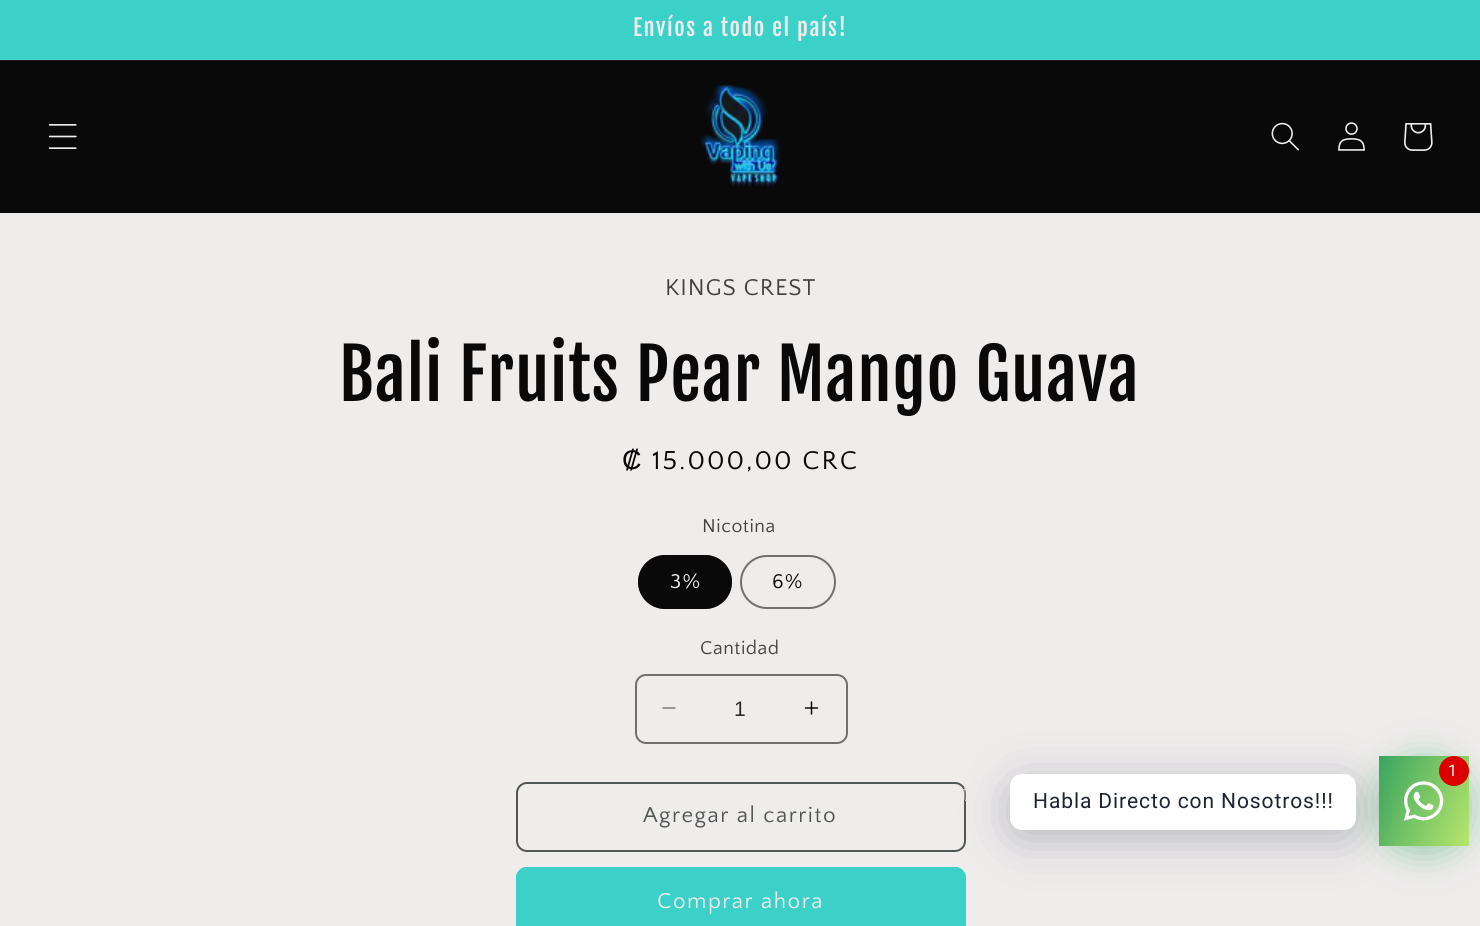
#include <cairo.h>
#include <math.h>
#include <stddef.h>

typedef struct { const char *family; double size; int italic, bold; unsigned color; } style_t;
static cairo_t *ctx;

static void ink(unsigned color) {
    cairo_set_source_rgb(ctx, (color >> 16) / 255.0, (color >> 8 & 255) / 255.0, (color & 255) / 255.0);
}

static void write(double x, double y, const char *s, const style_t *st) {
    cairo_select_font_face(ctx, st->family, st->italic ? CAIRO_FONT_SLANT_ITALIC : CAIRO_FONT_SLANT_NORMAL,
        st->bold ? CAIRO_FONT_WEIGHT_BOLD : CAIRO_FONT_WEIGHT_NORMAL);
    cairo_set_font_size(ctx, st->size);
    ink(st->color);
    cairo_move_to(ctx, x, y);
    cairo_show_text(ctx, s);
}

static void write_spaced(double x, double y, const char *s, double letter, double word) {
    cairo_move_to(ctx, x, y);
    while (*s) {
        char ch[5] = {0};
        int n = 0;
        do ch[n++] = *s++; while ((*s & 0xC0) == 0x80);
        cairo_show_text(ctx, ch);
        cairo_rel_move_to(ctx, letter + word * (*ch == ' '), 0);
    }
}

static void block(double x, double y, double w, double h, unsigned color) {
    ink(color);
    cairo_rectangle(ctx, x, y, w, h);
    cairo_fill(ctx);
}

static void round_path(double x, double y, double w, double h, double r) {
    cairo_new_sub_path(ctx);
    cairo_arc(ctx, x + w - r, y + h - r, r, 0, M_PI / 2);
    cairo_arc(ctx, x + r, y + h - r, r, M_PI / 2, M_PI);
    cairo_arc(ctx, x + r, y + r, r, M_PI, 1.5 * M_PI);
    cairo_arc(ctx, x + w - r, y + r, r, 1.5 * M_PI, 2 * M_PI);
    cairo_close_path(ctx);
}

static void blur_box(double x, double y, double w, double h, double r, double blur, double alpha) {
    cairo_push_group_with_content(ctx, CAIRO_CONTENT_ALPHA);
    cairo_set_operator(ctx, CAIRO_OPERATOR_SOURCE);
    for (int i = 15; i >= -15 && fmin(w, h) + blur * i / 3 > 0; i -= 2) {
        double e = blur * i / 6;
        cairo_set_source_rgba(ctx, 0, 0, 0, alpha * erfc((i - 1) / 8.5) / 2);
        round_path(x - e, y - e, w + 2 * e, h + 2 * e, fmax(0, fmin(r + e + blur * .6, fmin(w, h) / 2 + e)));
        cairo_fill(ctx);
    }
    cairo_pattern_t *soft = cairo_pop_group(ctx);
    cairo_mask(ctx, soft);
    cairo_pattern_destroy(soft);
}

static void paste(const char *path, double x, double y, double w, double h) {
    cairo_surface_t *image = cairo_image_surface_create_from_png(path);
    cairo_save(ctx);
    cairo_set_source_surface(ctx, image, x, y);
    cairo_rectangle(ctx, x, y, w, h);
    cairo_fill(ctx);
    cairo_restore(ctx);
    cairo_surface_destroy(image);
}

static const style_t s1 = {"Liberation Sans", 21, 0, 0, 0x2c2b2b};
static const style_t s2 = {"Roboto Thin", 22.5, 0, 0, 0xefecec};

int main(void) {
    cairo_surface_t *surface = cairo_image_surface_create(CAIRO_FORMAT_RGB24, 1480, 926);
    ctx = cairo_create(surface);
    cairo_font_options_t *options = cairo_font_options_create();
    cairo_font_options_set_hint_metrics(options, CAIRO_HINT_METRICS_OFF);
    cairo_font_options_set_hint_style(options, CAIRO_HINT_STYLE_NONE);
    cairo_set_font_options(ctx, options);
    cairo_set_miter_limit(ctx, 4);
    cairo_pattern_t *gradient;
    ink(0xefecec);
    cairo_paint(ctx);
    block(0, 0, 1480, 59, 0x3bd1c9);
    block(0, 59, 1480, 1, 0x49d3cc);
    cairo_select_font_face(ctx, "Fjalla One", CAIRO_FONT_SLANT_NORMAL, CAIRO_FONT_WEIGHT_NORMAL);
    cairo_set_font_size(ctx, 22.5);
    ink(0xefecec);
    write_spaced(633, 36, "Envíos a todo el país!", 1.5, 0);
    block(0, 61, 1480, 152, 0x0a0909);
    block(0, 60, 1480, 1, 0x1c1b1b);
    paste("pic1.png", 48, 124, 29, 25);
    paste("pic2.png", 700, 85, 82, 101);
    paste("pic3.png", 1271, 122, 28, 29);
    paste("pic4.png", 1338, 122, 27, 29);
    paste("pic5.png", 1404, 123, 29, 28);
    cairo_select_font_face(ctx, "Quattrocento Sans", CAIRO_FONT_SLANT_NORMAL, CAIRO_FONT_WEIGHT_NORMAL);
    cairo_set_font_size(ctx, 24);
    ink(0x434242);
    write_spaced(665, 295, "KINGS CREST", 0.9, 0);
    cairo_select_font_face(ctx, "Fjalla One", CAIRO_FONT_SLANT_NORMAL, CAIRO_FONT_WEIGHT_NORMAL);
    cairo_set_font_size(ctx, 69);
    ink(0x0a0909);
    write_spaced(339, 401, "Bali Fruits Pear Mango Guava", 1, 0);
    cairo_select_font_face(ctx, "Liberation Sans", CAIRO_FONT_SLANT_NORMAL, CAIRO_FONT_WEIGHT_NORMAL);
    cairo_set_font_size(ctx, 27);
    write_spaced(622, 469, "₡", 2, 0);
    cairo_select_font_face(ctx, "Quattrocento Sans", CAIRO_FONT_SLANT_NORMAL, CAIRO_FONT_WEIGHT_NORMAL);
    write_spaced(652, 469, "15.000,00 CRC", 2, 0);
    cairo_set_font_size(ctx, 19.5);
    ink(0x434242);
    write_spaced(702, 532, "Nicotina", 0.5, 0);
    ink(0x0a0909);
    round_path(638, 555, 94, 54, 27);
    cairo_fill(ctx);
    round_path(639, 556, 92, 52, 26);
    cairo_set_source_rgba(ctx, 0.039, 0.035, 0.035, 0.55);
    cairo_stroke(ctx);
    cairo_set_font_size(ctx, 21);
    ink(0xefecec);
    write_spaced(670, 588, "3%", 1.5, 0);
    round_path(741, 556, 94, 52, 26);
    ink(0x716f6f);
    cairo_stroke(ctx);
    ink(0x0a0909);
    write_spaced(772, 588, "6%", 1.5, 0);
    cairo_set_font_size(ctx, 19.5);
    ink(0x434242);
    write_spaced(700, 654, "Cantidad", 0.5, 0);
    paste("pic6.png", 662, 707, 14, 2);
    paste("pic7.png", 804, 701, 15, 14);
    round_path(636, 675, 211, 68, 10);
    ink(0x716f6f);
    cairo_stroke(ctx);
    write(734, 716, "1", &s1);
    round_path(517, 783, 448, 68, 10);
    ink(0x505655);
    cairo_stroke(ctx);
    cairo_select_font_face(ctx, "Quattrocento Sans", CAIRO_FONT_SLANT_NORMAL, CAIRO_FONT_WEIGHT_NORMAL);
    cairo_set_font_size(ctx, 22.5);
    write_spaced(643, 822, "Agregar al carrito", 1.5, 0);
    ink(0x3bd1c9);
    round_path(516, 867, 450, 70, 11);
    cairo_fill(ctx);
    round_path(517, 868, 448, 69, 10);
    cairo_stroke(ctx);
    ink(0xefecec);
    write_spaced(657, 908, "Comprar ahora", 1.5, 0);
    write(962, 801, "t", &s2);
    ink(0x3aa560);
    blur_box(1379, 762, 90, 90, 45, 18, 0.5);
    gradient = cairo_pattern_create_linear(1369, 776, 1478, 826);
    cairo_pattern_add_color_stop_rgba(gradient, 0, 0.227, 0.647, 0.376, 1);
    cairo_pattern_add_color_stop_rgba(gradient, 1, 0.718, 0.902, 0.424, 1);
    cairo_set_source(ctx, gradient);
    cairo_pattern_destroy(gradient);
    cairo_rectangle(ctx, 1379, 756, 90, 90);
    cairo_fill(ctx);
    ink(0x00122e);
    blur_box(1010, 783, 346, 56, 12, 24, 0.24);
    paste("pic8.png", 1403, 781, 41, 40);
    ink(0xdd0000);
    cairo_arc(ctx, 1454, 771, 15, 0, 2 * M_PI);
    cairo_fill(ctx);
    cairo_select_font_face(ctx, "Roboto", CAIRO_FONT_SLANT_NORMAL, CAIRO_FONT_WEIGHT_NORMAL);
    cairo_set_font_size(ctx, 16);
    ink(0xffffff);
    write_spaced(1448, 776, "1", 0.9, 0);
    round_path(1010, 774, 346, 56, 12);
    cairo_fill(ctx);
    cairo_set_font_size(ctx, 21);
    ink(0x1e2433);
    write_spaced(1033, 808, "Habla Directo con Nosotros!!!", 0.9, 0);
    cairo_surface_write_to_png(surface, "screenshot.png");
    cairo_font_options_destroy(options);
    cairo_destroy(ctx);
    cairo_surface_destroy(surface);
    return 0;
}
